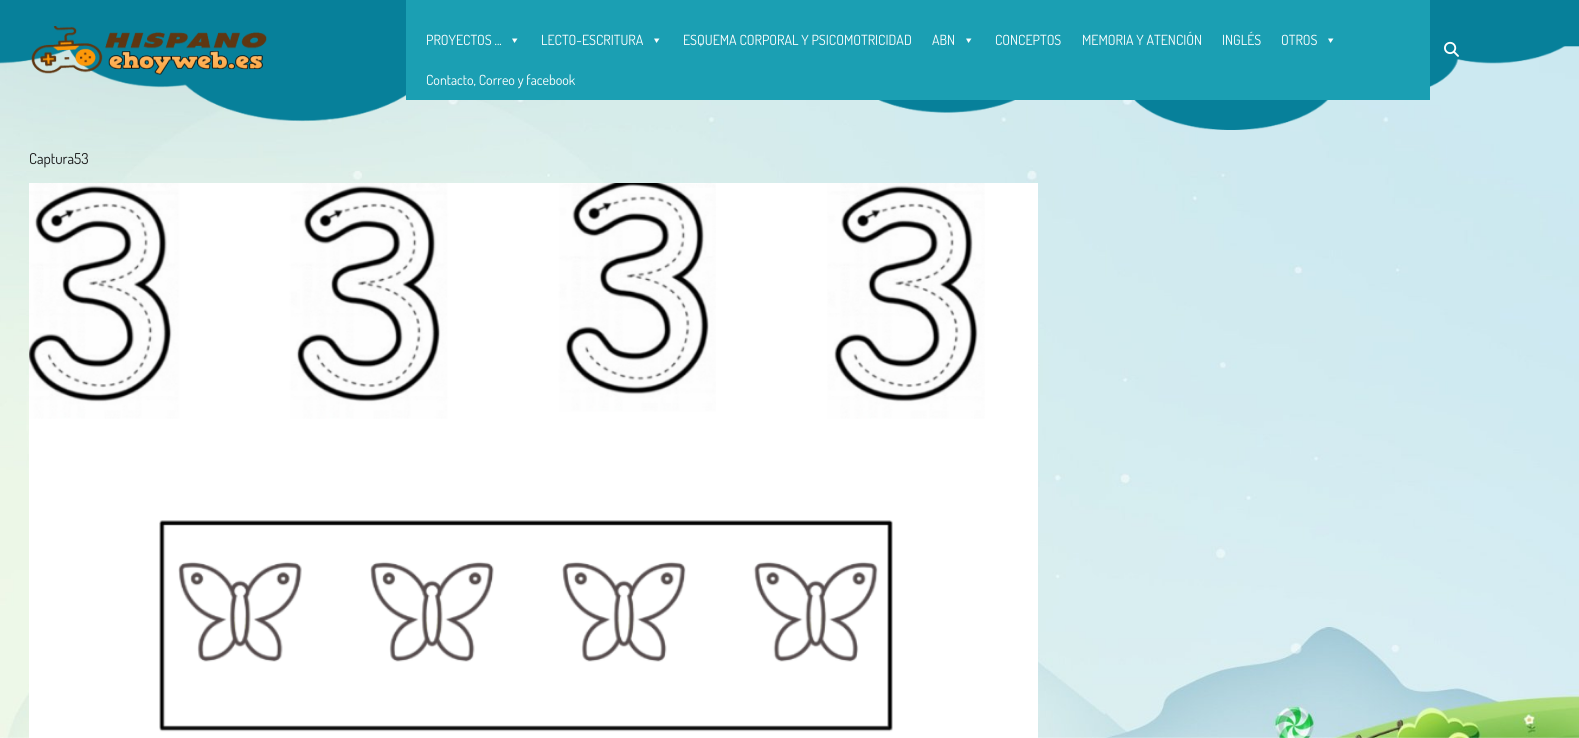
#include <cairo.h>
#include <math.h>
#include <stddef.h>

typedef struct { const char *family; double size; int italic, bold; unsigned color; } style_t;
static cairo_t *ctx;

static void ink(unsigned color) {
    cairo_set_source_rgb(ctx, (color >> 16) / 255.0, (color >> 8 & 255) / 255.0, (color & 255) / 255.0);
}

static void write(double x, double y, const char *s, const style_t *st) {
    cairo_select_font_face(ctx, st->family, st->italic ? CAIRO_FONT_SLANT_ITALIC : CAIRO_FONT_SLANT_NORMAL,
        st->bold ? CAIRO_FONT_WEIGHT_BOLD : CAIRO_FONT_WEIGHT_NORMAL);
    cairo_set_font_size(ctx, st->size);
    ink(st->color);
    cairo_move_to(ctx, x, y);
    cairo_show_text(ctx, s);
}

static void block(double x, double y, double w, double h, unsigned color) {
    ink(color);
    cairo_rectangle(ctx, x, y, w, h);
    cairo_fill(ctx);
}

static void paste(const char *path, double x, double y, double w, double h) {
    cairo_surface_t *image = cairo_image_surface_create_from_png(path);
    cairo_save(ctx);
    cairo_set_source_surface(ctx, image, x, y);
    cairo_rectangle(ctx, x, y, w, h);
    cairo_fill(ctx);
    cairo_restore(ctx);
    cairo_surface_destroy(image);
}

static const style_t s1 = {"Dosis", 14, 0, 0, 0xffffff};
static const style_t s2 = {"Dosis", 15, 0, 0, 0x191919};

int main(void) {
    cairo_surface_t *surface = cairo_image_surface_create(CAIRO_FORMAT_RGB24, 1579, 738);
    ctx = cairo_create(surface);
    cairo_font_options_t *options = cairo_font_options_create();
    cairo_font_options_set_hint_metrics(options, CAIRO_HINT_METRICS_OFF);
    cairo_font_options_set_hint_style(options, CAIRO_HINT_STYLE_NONE);
    cairo_set_font_options(ctx, options);
    cairo_set_miter_limit(ctx, 4);
    ink(0xffffff);
    cairo_paint(ctx);
    paste("pic1.png", 0, 46, 1579, 692);
    paste("pic2.png", 0, 0, 1579, 130);
    paste("pic3.png", 31, 26, 236, 49);
    block(406, 0, 1024, 100, 0x1b9fb3);
    write(426, 45, "PROYECTOS ...", &s1);
    cairo_new_path(ctx);
    cairo_move_to(ctx, 517.5, 38.5);
    cairo_line_to(ctx, 514.5, 43);
    cairo_line_to(ctx, 512, 38.5);
    cairo_close_path(ctx);
    cairo_fill(ctx);
    write(541, 45, "LECTO-ESCRITURA", &s1);
    cairo_new_path(ctx);
    cairo_move_to(ctx, 659.5, 38.5);
    cairo_line_to(ctx, 656.5, 43);
    cairo_line_to(ctx, 654, 38.5);
    cairo_close_path(ctx);
    cairo_fill(ctx);
    write(683, 45, "ESQUEMA CORPORAL Y PSICOMOTRICIDAD", &s1);
    write(932, 45, "ABN", &s1);
    cairo_new_path(ctx);
    cairo_move_to(ctx, 971.5, 38.5);
    cairo_line_to(ctx, 968.5, 43);
    cairo_line_to(ctx, 966, 38.5);
    cairo_close_path(ctx);
    cairo_fill(ctx);
    write(995, 45, "CONCEPTOS", &s1);
    write(1082, 45, "MEMORIA Y ATENCIÓN", &s1);
    write(1222, 45, "INGLÉS", &s1);
    write(1281, 45, "OTROS", &s1);
    cairo_new_path(ctx);
    cairo_move_to(ctx, 1333.5, 38.5);
    cairo_line_to(ctx, 1330.5, 43);
    cairo_line_to(ctx, 1328, 38.5);
    cairo_close_path(ctx);
    cairo_fill(ctx);
    write(426, 85, "Contacto, Correo y facebook", &s1);
    paste("pic4.png", 1444, 41, 15, 16);
    write(29, 164, "Captura53", &s2);
    paste("pic5.png", 29, 183, 1009, 555);
    cairo_surface_write_to_png(surface, "screenshot.png");
    cairo_font_options_destroy(options);
    cairo_destroy(ctx);
    cairo_surface_destroy(surface);
    return 0;
}
